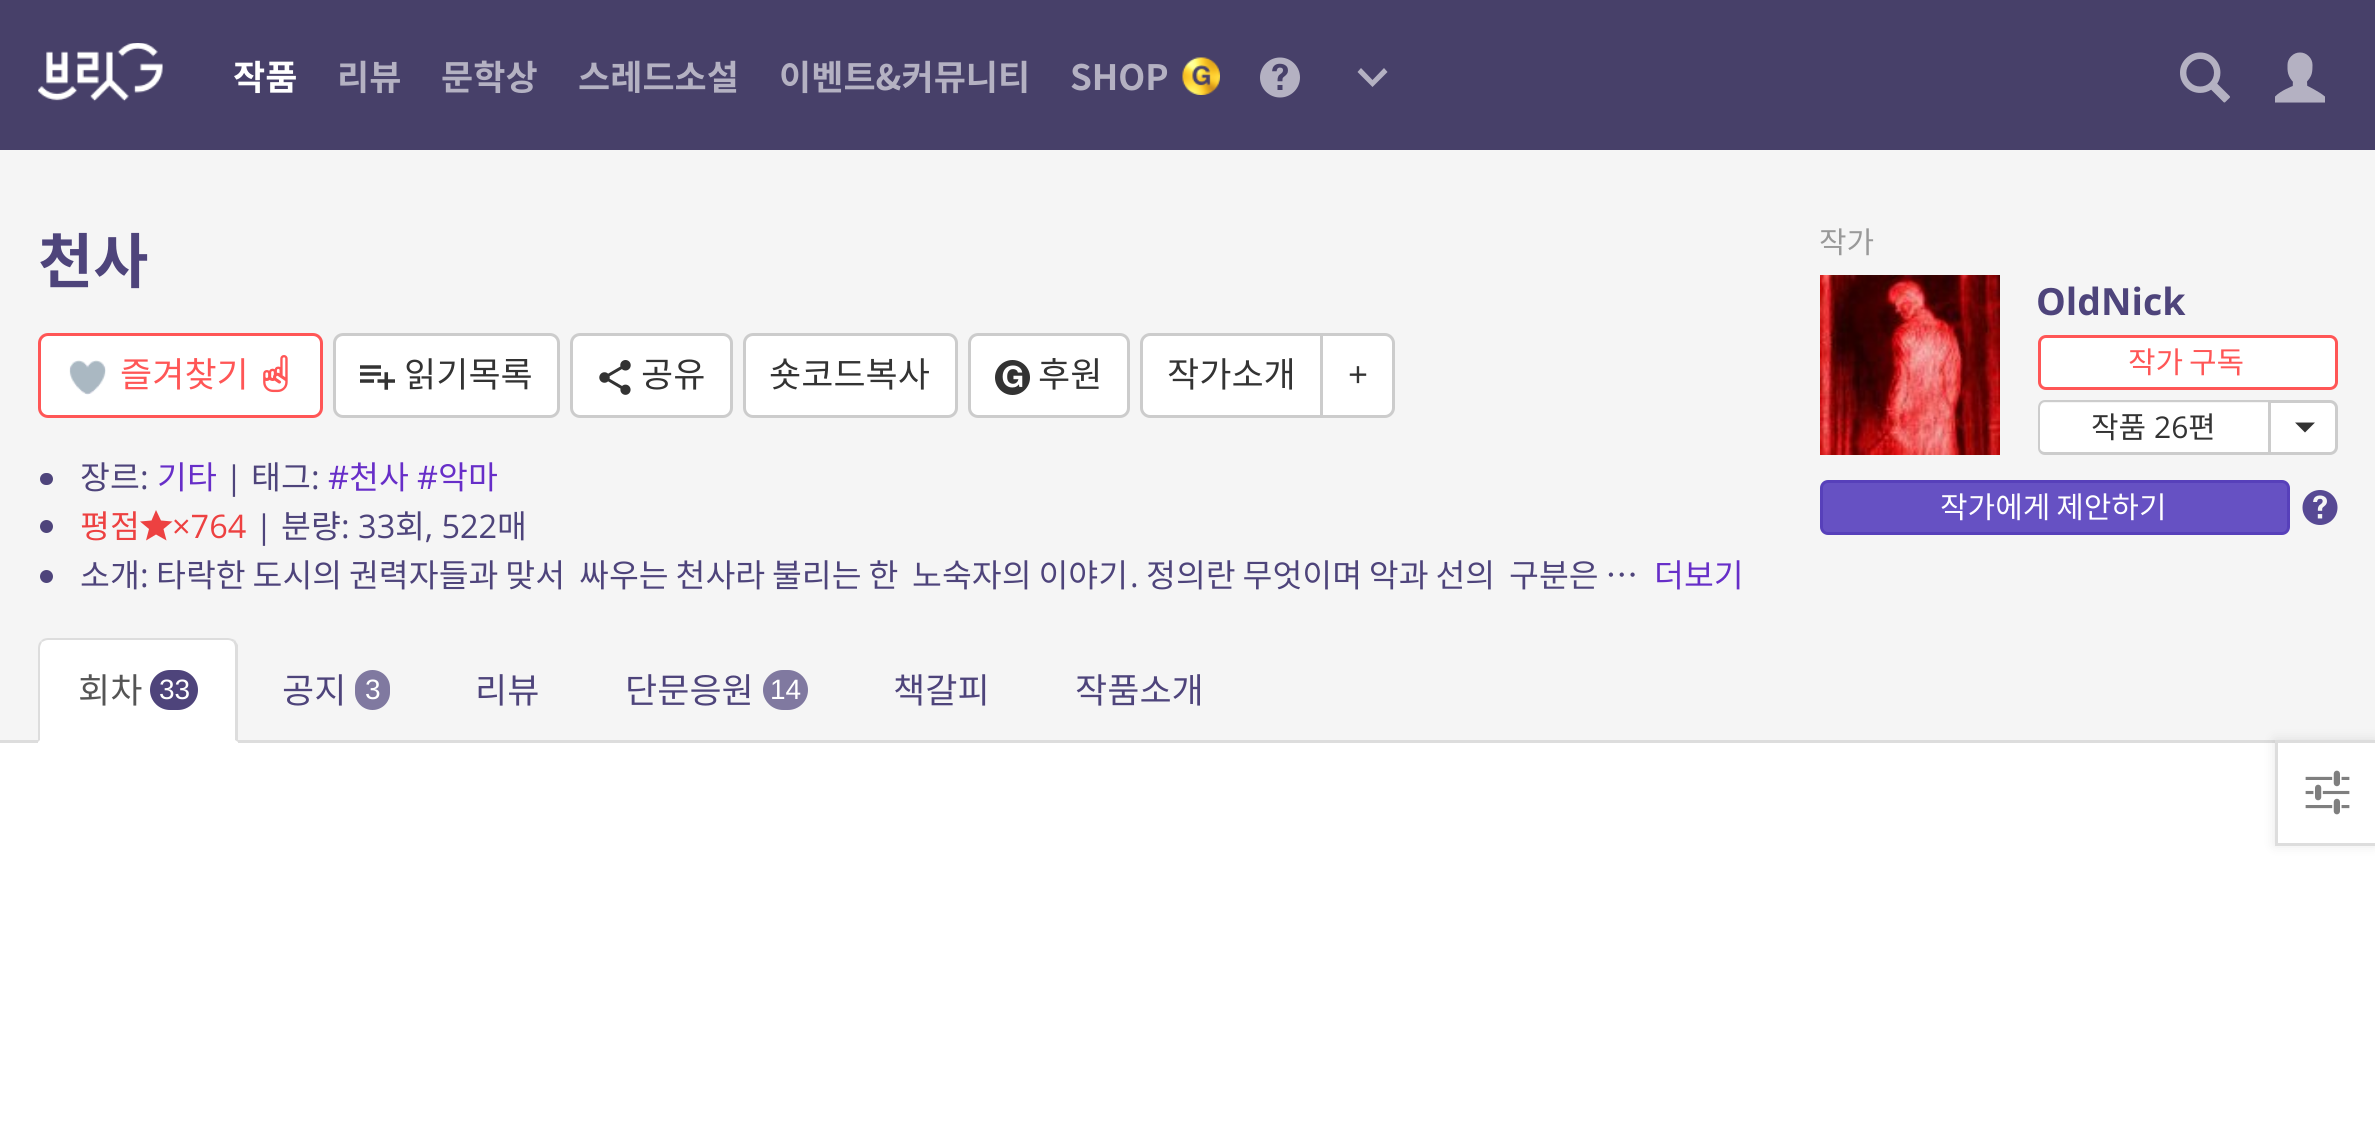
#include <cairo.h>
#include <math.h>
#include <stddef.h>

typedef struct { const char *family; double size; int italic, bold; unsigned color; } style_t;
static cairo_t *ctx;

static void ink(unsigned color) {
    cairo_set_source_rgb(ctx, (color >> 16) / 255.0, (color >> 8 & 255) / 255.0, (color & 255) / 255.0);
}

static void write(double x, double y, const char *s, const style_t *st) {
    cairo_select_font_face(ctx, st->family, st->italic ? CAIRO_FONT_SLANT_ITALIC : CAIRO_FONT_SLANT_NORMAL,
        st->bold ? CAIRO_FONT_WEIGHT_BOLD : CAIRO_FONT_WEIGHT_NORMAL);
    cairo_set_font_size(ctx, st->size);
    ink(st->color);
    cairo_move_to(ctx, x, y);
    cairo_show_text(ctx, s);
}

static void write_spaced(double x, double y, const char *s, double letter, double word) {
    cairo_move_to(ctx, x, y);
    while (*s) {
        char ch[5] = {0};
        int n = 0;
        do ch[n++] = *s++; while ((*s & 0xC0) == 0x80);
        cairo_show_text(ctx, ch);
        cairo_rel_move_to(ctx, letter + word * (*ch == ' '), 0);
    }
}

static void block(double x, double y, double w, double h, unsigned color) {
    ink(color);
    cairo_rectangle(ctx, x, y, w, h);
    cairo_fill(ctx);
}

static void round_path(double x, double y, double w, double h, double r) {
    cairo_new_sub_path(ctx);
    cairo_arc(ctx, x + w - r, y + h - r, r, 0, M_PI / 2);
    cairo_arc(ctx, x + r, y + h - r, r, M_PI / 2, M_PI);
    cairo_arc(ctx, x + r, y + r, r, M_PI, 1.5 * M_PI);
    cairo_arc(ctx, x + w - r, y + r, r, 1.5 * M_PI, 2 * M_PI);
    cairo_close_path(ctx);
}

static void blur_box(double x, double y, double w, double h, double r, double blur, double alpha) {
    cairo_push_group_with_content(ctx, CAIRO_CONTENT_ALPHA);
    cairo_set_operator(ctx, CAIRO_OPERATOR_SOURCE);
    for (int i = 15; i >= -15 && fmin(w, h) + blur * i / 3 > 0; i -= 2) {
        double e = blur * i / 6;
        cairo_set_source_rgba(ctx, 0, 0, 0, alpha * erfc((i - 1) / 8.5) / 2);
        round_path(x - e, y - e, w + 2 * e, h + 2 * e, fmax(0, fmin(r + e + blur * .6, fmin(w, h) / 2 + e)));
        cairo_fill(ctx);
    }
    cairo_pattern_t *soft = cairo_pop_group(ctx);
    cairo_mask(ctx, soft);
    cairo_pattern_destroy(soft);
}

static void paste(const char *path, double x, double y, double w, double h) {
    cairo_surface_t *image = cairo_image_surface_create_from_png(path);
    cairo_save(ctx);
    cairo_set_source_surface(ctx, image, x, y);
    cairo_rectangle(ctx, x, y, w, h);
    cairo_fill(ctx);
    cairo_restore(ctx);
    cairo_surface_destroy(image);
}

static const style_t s1 = {"Noto Sans KR", 35, 0, 1, 0xffffff};
static const style_t s2 = {"Noto Sans KR", 35, 0, 1, 0xb4b1c2};
static const style_t s3 = {"Noto Sans KR", 60, 0, 1, 0x4e447b};
static const style_t s4 = {"Noto Sans KR", 35, 0, 0, 0xff5656};
static const style_t s5 = {"Noto Sans KR", 35, 0, 0, 0x333333};
static const style_t s6 = {"Open Sans", 35, 0, 0, 0x333333};
static const style_t s7 = {"Noto Sans KR", 32.5, 0, 0, 0x4e447b};
static const style_t s8 = {"Open Sans", 32.5, 0, 0, 0x4e447b};
static const style_t s9 = {"Noto Sans KR", 32.5, 0, 0, 0x672ec8};
static const style_t s10 = {"Open Sans", 32.5, 0, 0, 0x672ec8};
static const style_t s11 = {"Noto Sans KR", 32.5, 0, 0, 0xed4141};
static const style_t s12 = {"Open Sans", 32.5, 0, 0, 0xed4141};
static const style_t s13 = {"Noto Sans KR", 30, 0, 0, 0x999999};
static const style_t s14 = {"Open Sans", 37.5, 0, 1, 0x4e447b};
static const style_t s15 = {"Noto Sans KR", 30, 0, 0, 0x333333};
static const style_t s16 = {"Open Sans", 30, 0, 0, 0x333333};
static const style_t s17 = {"Noto Sans KR", 35, 0, 0, 0x555555};
static const style_t s18 = {"Liberation Sans", 28, 0, 0, 0xffffff};
static const style_t s19 = {"Noto Sans KR", 35, 0, 0, 0x4e447b};

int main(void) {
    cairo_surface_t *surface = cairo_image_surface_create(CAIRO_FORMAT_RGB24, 2375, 1140);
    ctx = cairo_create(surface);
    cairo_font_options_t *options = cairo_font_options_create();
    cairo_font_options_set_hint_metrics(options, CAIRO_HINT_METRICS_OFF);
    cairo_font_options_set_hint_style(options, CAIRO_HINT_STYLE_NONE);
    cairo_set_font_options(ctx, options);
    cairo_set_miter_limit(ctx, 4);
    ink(0xffffff);
    cairo_paint(ctx);
    block(0, 0, 2375, 150, 0x474069);
    paste("pic1.png", 38, 43, 125, 59);
    write(233, 90, "작품", &s1);
    write(337, 90, "리뷰", &s2);
    write(441, 90, "문학상", &s2);
    write(578, 90, "스레드소설", &s2);
    write(779, 90, "이벤트&커뮤니티", &s2);
    write(1070, 90, "SHOP", &s2);
    paste("pic2.png", 1182, 57, 38, 38);
    paste("pic3.png", 1260, 57, 40, 41);
    cairo_new_path(ctx);
    cairo_move_to(ctx, 1372.5, 80);
    cairo_line_to(ctx, 1361, 68);
    cairo_line_to(ctx, 1357.5, 72);
    cairo_line_to(ctx, 1372.5, 87);
    cairo_line_to(ctx, 1387.5, 72);
    cairo_line_to(ctx, 1384, 68);
    cairo_close_path(ctx);
    cairo_fill(ctx);
    paste("pic4.png", 2180, 52, 50, 51);
    paste("pic5.png", 2275, 52, 50, 51);
    block(0, 150, 2375, 590, 0xf5f5f5);
    block(0, 740, 2275, 3, 0xdddddd);
    write(38, 283, "천사", &s3);
    ink(0xffffff);
    round_path(39.5, 334.5, 282, 82, 8.5);
    cairo_fill_preserve(ctx);
    ink(0xff5656);
    cairo_set_line_width(ctx, 3);
    cairo_stroke(ctx);
    paste("pic6.png", 69, 360, 37, 35);
    write(120, 387, "즐겨찾기", &s4);
    paste("pic7.png", 263, 355, 25, 38);
    ink(0xffffff);
    round_path(334.5, 334.5, 224, 82, 8.5);
    cairo_fill_preserve(ctx);
    ink(0xcccccc);
    cairo_stroke(ctx);
    paste("pic8.png", 360, 365, 35, 25);
    write(404, 387, "읽기목록", &s5);
    ink(0xffffff);
    round_path(571.5, 334.5, 160, 82, 8.5);
    cairo_fill_preserve(ctx);
    ink(0xcccccc);
    cairo_stroke(ctx);
    paste("pic9.png", 599, 360, 32, 35);
    write(641, 387, "공유", &s5);
    ink(0xffffff);
    round_path(744.5, 334.5, 212, 82, 8.5);
    cairo_fill_preserve(ctx);
    ink(0xcccccc);
    cairo_stroke(ctx);
    write(769, 387, "숏코드복사", &s5);
    ink(0xffffff);
    round_path(969.5, 334.5, 159, 82, 8.5);
    cairo_fill_preserve(ctx);
    ink(0xcccccc);
    cairo_stroke(ctx);
    paste("pic10.png", 995, 360, 35, 35);
    write(1038, 387, "후원", &s5);
    ink(0xffffff);
    cairo_new_path(ctx);
    cairo_move_to(ctx, 1150, 334.5);
    cairo_line_to(ctx, 1321.5, 334.5);
    cairo_line_to(ctx, 1321.5, 416.5);
    cairo_line_to(ctx, 1150, 416.5);
    cairo_curve_to(ctx, 1145.5, 416.5, 1141.5, 412.5, 1141.5, 408);
    cairo_line_to(ctx, 1141.5, 343);
    cairo_curve_to(ctx, 1141.5, 338.5, 1145.5, 334.5, 1150, 334.5);
    cairo_close_path(ctx);
    cairo_fill_preserve(ctx);
    ink(0xcccccc);
    cairo_stroke(ctx);
    write(1167, 387, "작가소개", &s5);
    ink(0xffffff);
    cairo_new_path(ctx);
    cairo_move_to(ctx, 1321.5, 334.5);
    cairo_line_to(ctx, 1385, 334.5);
    cairo_curve_to(ctx, 1389.5, 334.5, 1393.5, 338.5, 1393.5, 343);
    cairo_line_to(ctx, 1393.5, 408);
    cairo_curve_to(ctx, 1393.5, 412.5, 1389.5, 416.5, 1385, 416.5);
    cairo_line_to(ctx, 1321.5, 416.5);
    cairo_close_path(ctx);
    cairo_fill_preserve(ctx);
    ink(0xcccccc);
    cairo_stroke(ctx);
    write(1348, 387, "+", &s6);
    ink(0x4e447b);
    round_path(40, 473, 13, 12, 6);
    cairo_fill(ctx);
    write(80, 489, "장르", &s7);
    write(140, 489, ":", &s8);
    write(157, 489, "기타", &s9);
    write(225, 489, "|", &s8);
    write(251, 489, "태그", &s7);
    write(311, 489, ":", &s8);
    write(328, 489, "#", &s10);
    write(349, 489, "천사", &s9);
    write(417, 489, "#", &s10);
    write(438, 489, "악마", &s9);
    ink(0x4e447b);
    cairo_new_path(ctx);
    cairo_arc(ctx, 46.5, 526.5, 6.5, 0, 2 * M_PI);
    cairo_fill(ctx);
    write(80, 538, "평점", &s11);
    cairo_new_path(ctx);
    cairo_move_to(ctx, 156, 534.5);
    cairo_line_to(ctx, 146, 540.5);
    cairo_line_to(ctx, 149, 529);
    cairo_line_to(ctx, 140, 521.5);
    cairo_line_to(ctx, 151.5, 520.5);
    cairo_line_to(ctx, 156, 510);
    cairo_line_to(ctx, 161, 520.5);
    cairo_line_to(ctx, 172.5, 521.5);
    cairo_line_to(ctx, 163.5, 529);
    cairo_line_to(ctx, 166.5, 540.5);
    cairo_close_path(ctx);
    cairo_fill(ctx);
    write(172, 538, "×764", &s12);
    write(255, 538, "|", &s8);
    write(281, 538, "분량", &s7);
    write(341, 538, ": 33", &s8);
    write(395, 538, "회", &s7);
    write(425, 538, ", 522", &s8);
    write(497, 538, "매", &s7);
    cairo_new_path(ctx);
    cairo_arc(ctx, 46.5, 576.5, 6.5, 0, 2 * M_PI);
    cairo_fill(ctx);
    write(80, 587, "소개", &s7);
    write(140, 587, ":", &s8);
    cairo_select_font_face(ctx, "Noto Sans KR", CAIRO_FONT_SLANT_NORMAL, CAIRO_FONT_WEIGHT_NORMAL);
    write_spaced(156, 587, "타락한 도시의 권력자들과 맞서", 0, -0.5);
    write_spaced(579, 587, "싸우는 천사라 불리는 한", 0, -0.5);
    write_spaced(912, 587, "노숙자의 이야기", 0, -0.5);
    write(1130, 587, ".", &s8);
    cairo_select_font_face(ctx, "Noto Sans KR", CAIRO_FONT_SLANT_NORMAL, CAIRO_FONT_WEIGHT_NORMAL);
    write_spaced(1146, 587, "정의란 무엇이며 악과 선의", 0, -0.5);
    write_spaced(1509, 587, "구분은 …", 0, -0.5);
    write(1654, 587, "더보기", &s9);
    write(1819, 253, "작가", &s13);
    paste("pic11.png", 1820, 275, 180, 180);
    write(2036, 315, "OldNick", &s14);
    ink(0xffffff);
    round_path(2039.5, 336.5, 297, 52, 6.5);
    cairo_fill_preserve(ctx);
    ink(0xff5656);
    cairo_stroke(ctx);
    cairo_select_font_face(ctx, "Noto Sans KR", CAIRO_FONT_SLANT_NORMAL, CAIRO_FONT_WEIGHT_NORMAL);
    cairo_set_font_size(ctx, 30);
    write_spaced(2128, 373, "작가 구독", 0, -1);
    ink(0xffffff);
    cairo_new_path(ctx);
    cairo_move_to(ctx, 2045, 403);
    cairo_line_to(ctx, 2268, 403);
    cairo_line_to(ctx, 2268, 453);
    cairo_line_to(ctx, 2045, 453);
    cairo_curve_to(ctx, 2042, 453, 2040, 451, 2040, 448);
    cairo_line_to(ctx, 2040, 408);
    cairo_curve_to(ctx, 2040, 405, 2042, 403, 2045, 403);
    cairo_close_path(ctx);
    cairo_fill(ctx);
    ink(0xcccccc);
    cairo_set_fill_rule(ctx, CAIRO_FILL_RULE_EVEN_ODD);
    cairo_new_path(ctx);
    cairo_move_to(ctx, 2045, 400);
    cairo_line_to(ctx, 2268, 400);
    cairo_line_to(ctx, 2268, 455);
    cairo_line_to(ctx, 2045, 455);
    cairo_curve_to(ctx, 2041, 455, 2038, 452, 2038, 448);
    cairo_line_to(ctx, 2038, 408);
    cairo_curve_to(ctx, 2038, 403, 2041, 400, 2045, 400);
    cairo_close_path(ctx);
    cairo_move_to(ctx, 2045, 402);
    cairo_line_to(ctx, 2268, 402);
    cairo_line_to(ctx, 2268, 452);
    cairo_line_to(ctx, 2045, 452);
    cairo_curve_to(ctx, 2042, 452, 2040, 450, 2040, 448);
    cairo_line_to(ctx, 2040, 408);
    cairo_curve_to(ctx, 2040, 405, 2042, 402, 2045, 402);
    cairo_close_path(ctx);
    cairo_fill(ctx);
    write(2091, 438, "작품", &s15);
    write(2154, 438, "26", &s16);
    write(2188, 438, "편", &s15);
    ink(0xffffff);
    cairo_new_path(ctx);
    cairo_move_to(ctx, 2269.5, 401.5);
    cairo_line_to(ctx, 2330, 401.5);
    cairo_curve_to(ctx, 2333.5, 401.5, 2336.5, 404.5, 2336.5, 408);
    cairo_line_to(ctx, 2336.5, 447);
    cairo_curve_to(ctx, 2336.5, 450.5, 2333.5, 453.5, 2330, 453.5);
    cairo_line_to(ctx, 2269.5, 453.5);
    cairo_close_path(ctx);
    cairo_fill_preserve(ctx);
    ink(0xcccccc);
    cairo_stroke(ctx);
    ink(0x333333);
    cairo_set_fill_rule(ctx, CAIRO_FILL_RULE_WINDING);
    cairo_new_path(ctx);
    cairo_move_to(ctx, 2295, 422.5);
    cairo_line_to(ctx, 2315, 422.5);
    cairo_line_to(ctx, 2305, 432.5);
    cairo_close_path(ctx);
    cairo_fill(ctx);
    ink(0x6651c3);
    round_path(1821.5, 481.5, 467, 52, 6.5);
    cairo_fill_preserve(ctx);
    ink(0x5740ba);
    cairo_stroke(ctx);
    ink(0xffffff);
    write_spaced(1940, 518, "작가에게 제안하기", 0, -1);
    paste("pic12.png", 2302, 490, 36, 35);
    cairo_new_path(ctx);
    cairo_move_to(ctx, 48, 638);
    cairo_line_to(ctx, 228, 638);
    cairo_curve_to(ctx, 233.5, 638, 238, 642.5, 238, 648);
    cairo_line_to(ctx, 238, 743);
    cairo_line_to(ctx, 38, 743);
    cairo_line_to(ctx, 38, 648);
    cairo_curve_to(ctx, 38, 642.5, 42.5, 638, 48, 638);
    cairo_close_path(ctx);
    cairo_fill(ctx);
    ink(0xdddddd);
    cairo_new_path(ctx);
    cairo_move_to(ctx, 48, 638);
    cairo_curve_to(ctx, 45, 638, 42, 639, 41, 641);
    cairo_line_to(ctx, 42, 642);
    cairo_curve_to(ctx, 44, 641, 46, 640, 48, 640);
    cairo_line_to(ctx, 228, 640);
    cairo_curve_to(ctx, 230, 640, 232, 641, 233, 642);
    cairo_line_to(ctx, 235, 640);
    cairo_curve_to(ctx, 233, 639, 230, 638, 228, 638);
    cairo_close_path(ctx);
    cairo_fill(ctx);
    cairo_new_path(ctx);
    cairo_move_to(ctx, 235, 640);
    cairo_curve_to(ctx, 236, 642, 237, 643, 238, 645);
    cairo_line_to(ctx, 238, 742);
    cairo_line_to(ctx, 235, 740);
    cairo_line_to(ctx, 235, 648);
    cairo_curve_to(ctx, 235, 645, 234, 643, 233, 642);
    cairo_close_path(ctx);
    cairo_fill(ctx);
    cairo_new_path(ctx);
    cairo_move_to(ctx, 41, 641);
    cairo_curve_to(ctx, 39, 642, 38, 645, 38, 648);
    cairo_line_to(ctx, 38, 742);
    cairo_line_to(ctx, 40, 740);
    cairo_line_to(ctx, 40, 648);
    cairo_curve_to(ctx, 40, 646, 41, 644, 42, 642);
    cairo_close_path(ctx);
    cairo_fill(ctx);
    write(78, 703, "회차", &s17);
    ink(0x4e447b);
    round_path(150, 670, 48, 40, 20);
    cairo_fill(ctx);
    write(159, 699, "33", &s18);
    write(282, 703, "공지", &s19);
    ink(0x8079a0);
    round_path(355, 670, 35, 40, 17.5);
    cairo_fill(ctx);
    write(365, 699, "3", &s18);
    write(475, 703, "리뷰", &s19);
    write(625, 703, "단문응원", &s19);
    ink(0x8079a0);
    round_path(763, 670, 45, 40, 20);
    cairo_fill(ctx);
    write(770, 699, "14", &s18);
    write(893, 703, "책갈피", &s19);
    write(1075, 703, "작품소개", &s19);
    ink(0x000000);
    blur_box(2275, 740, 100, 105, 0, 6, 0.1);
    block(2278, 743, 97, 100, 0xffffff);
    block(2275, 740, 100, 3, 0xdddddd);
    block(2275, 843, 100, 3, 0xdddddd);
    block(2275, 740, 3, 105, 0xdddddd);
    paste("pic13.png", 2305, 770, 45, 45);
    cairo_surface_write_to_png(surface, "screenshot.png");
    cairo_font_options_destroy(options);
    cairo_destroy(ctx);
    cairo_surface_destroy(surface);
    return 0;
}
